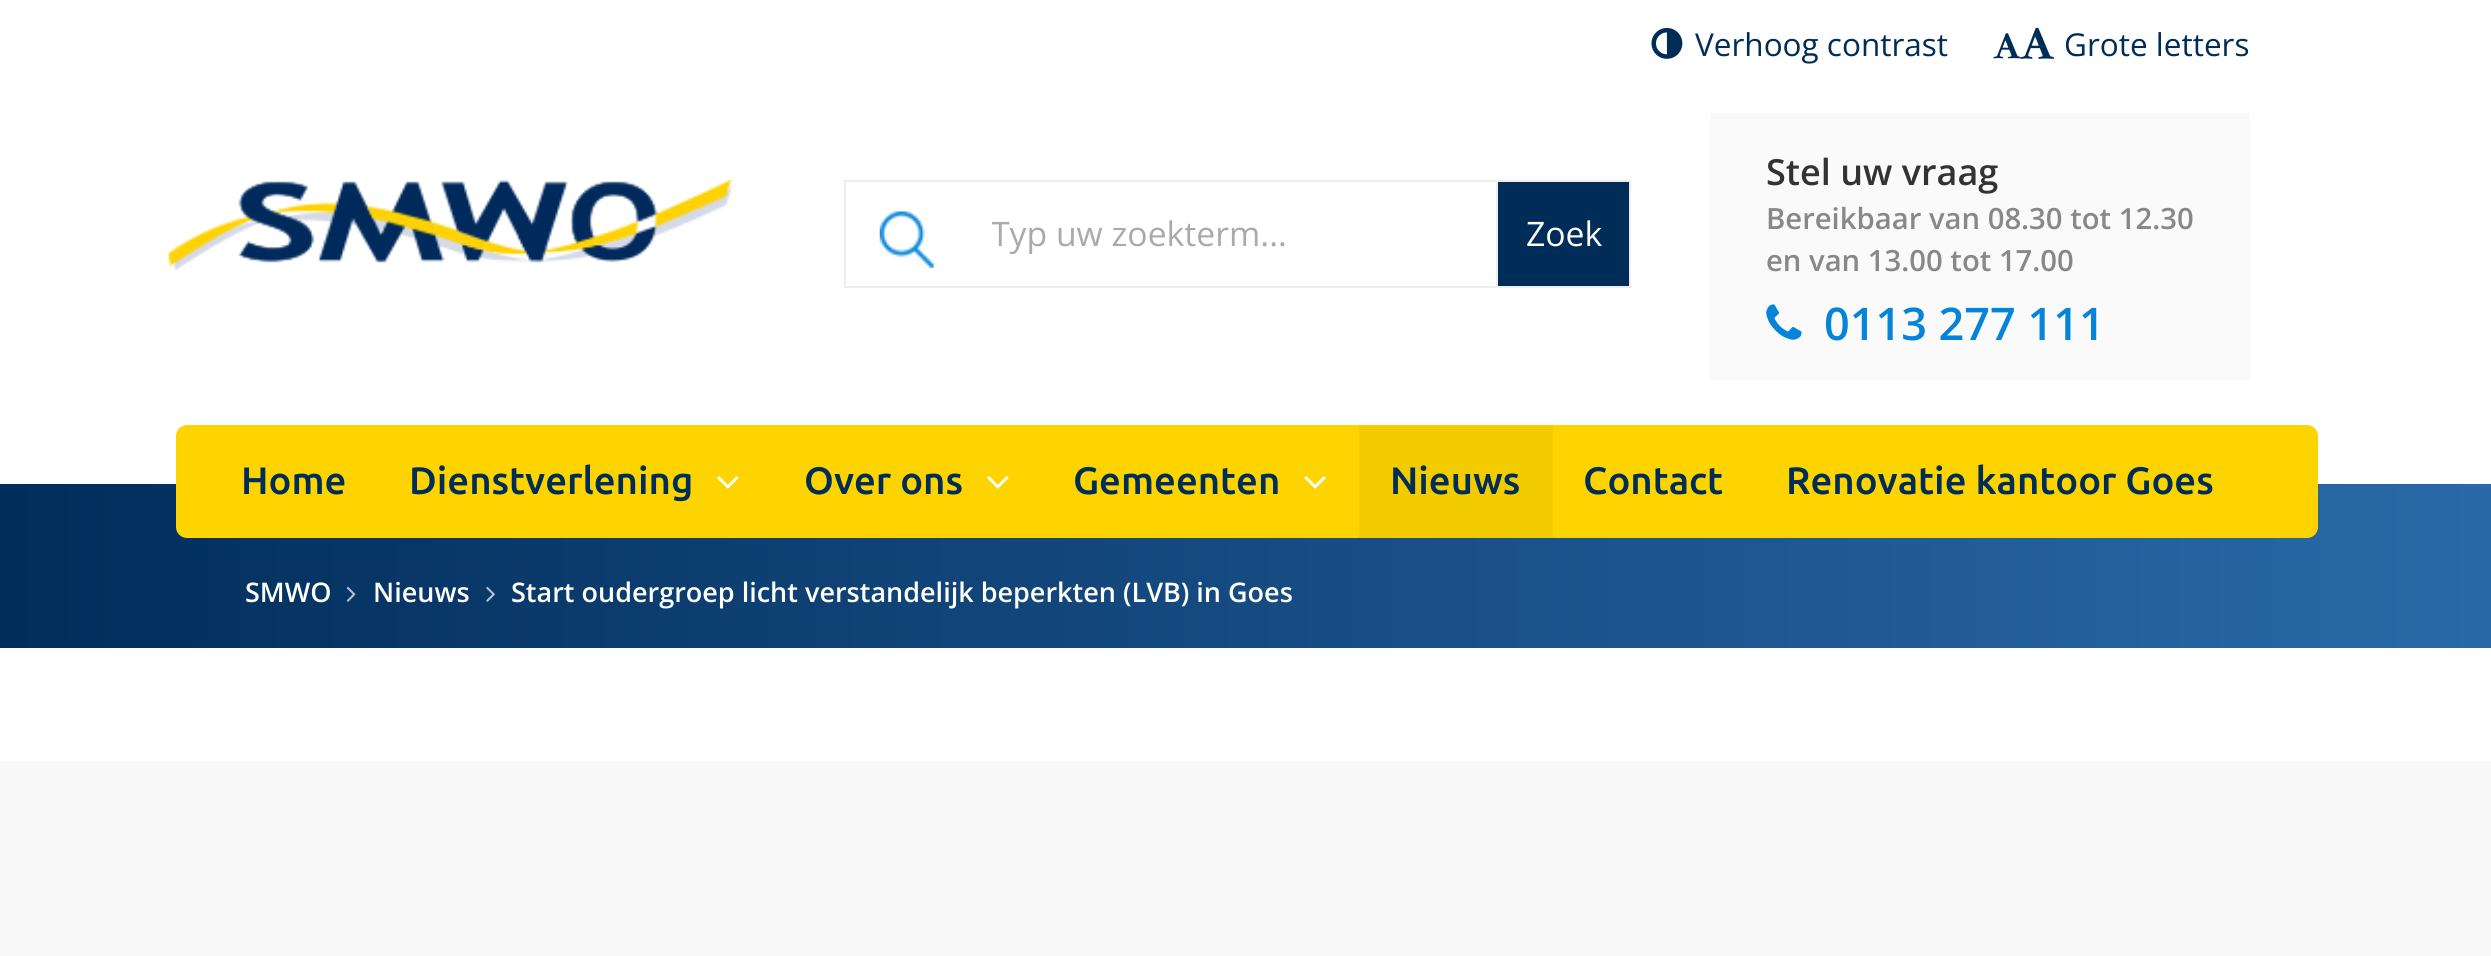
#include <cairo.h>
#include <math.h>
#include <stddef.h>

typedef struct { const char *family; double size; int italic, bold; unsigned color; } style_t;
static cairo_t *ctx;

static void ink(unsigned color) {
    cairo_set_source_rgb(ctx, (color >> 16) / 255.0, (color >> 8 & 255) / 255.0, (color & 255) / 255.0);
}

static void write(double x, double y, const char *s, const style_t *st) {
    cairo_select_font_face(ctx, st->family, st->italic ? CAIRO_FONT_SLANT_ITALIC : CAIRO_FONT_SLANT_NORMAL,
        st->bold ? CAIRO_FONT_WEIGHT_BOLD : CAIRO_FONT_WEIGHT_NORMAL);
    cairo_set_font_size(ctx, st->size);
    ink(st->color);
    cairo_move_to(ctx, x, y);
    cairo_show_text(ctx, s);
}

static void block(double x, double y, double w, double h, unsigned color) {
    ink(color);
    cairo_rectangle(ctx, x, y, w, h);
    cairo_fill(ctx);
}

static void round_path(double x, double y, double w, double h, double r) {
    cairo_new_sub_path(ctx);
    cairo_arc(ctx, x + w - r, y + h - r, r, 0, M_PI / 2);
    cairo_arc(ctx, x + r, y + h - r, r, M_PI / 2, M_PI);
    cairo_arc(ctx, x + r, y + r, r, M_PI, 1.5 * M_PI);
    cairo_arc(ctx, x + w - r, y + r, r, 1.5 * M_PI, 2 * M_PI);
    cairo_close_path(ctx);
}

static void paste(const char *path, double x, double y, double w, double h) {
    cairo_surface_t *image = cairo_image_surface_create_from_png(path);
    cairo_save(ctx);
    cairo_set_source_surface(ctx, image, x, y);
    cairo_rectangle(ctx, x, y, w, h);
    cairo_fill(ctx);
    cairo_restore(ctx);
    cairo_surface_destroy(image);
}

static const style_t s1 = {"Open Sans", 31.5, 0, 0, 0x002d57};
static const style_t s2 = {"Open Sans", 33.75, 0, 0, 0xaaaaaa};
static const style_t s3 = {"Open Sans", 33.75, 0, 0, 0xffffff};
static const style_t s4 = {"Open Sans SemiBold", 36, 0, 0, 0x333333};
static const style_t s5 = {"Open Sans SemiBold", 29.25, 0, 0, 0x888888};
static const style_t s6 = {"Open Sans SemiBold", 45, 0, 0, 0x0684d9};
static const style_t s7 = {"Ubuntu Medium", 38.25, 0, 0, 0x002d57};
static const style_t s8 = {"Open Sans SemiBold", 27, 0, 0, 0xffffff};

int main(void) {
    cairo_surface_t *surface = cairo_image_surface_create(CAIRO_FORMAT_RGB24, 2491, 956);
    ctx = cairo_create(surface);
    cairo_font_options_t *options = cairo_font_options_create();
    cairo_font_options_set_hint_metrics(options, CAIRO_HINT_METRICS_OFF);
    cairo_font_options_set_hint_style(options, CAIRO_HINT_STYLE_NONE);
    cairo_set_font_options(ctx, options);
    cairo_set_miter_limit(ctx, 4);
    cairo_pattern_t *gradient;
    ink(0xffffff);
    cairo_paint(ctx);
    paste("pic1.png", 1651, 28, 32, 31);
    write(1695, 56, "Verhoog contrast", &s1);
    paste("pic2.png", 1993, 33, 28, 26);
    paste("pic3.png", 2020, 27, 34, 32);
    write(2064, 56, "Grote letters", &s1);
    paste("pic4.png", 168, 180, 564, 90);
    cairo_rectangle(ctx, 845, 181, 785, 106);
    ink(0xeeeeee);
    cairo_stroke(ctx);
    paste("pic5.png", 879, 211, 55, 57);
    cairo_save(ctx);
    cairo_rectangle(ctx, 992, 209, 419, 45);
    cairo_clip(ctx);
    write(991, 246, "Typ uw zoekterm...", &s2);
    cairo_restore(ctx);
    block(1498, 182, 131, 104, 0x002d57);
    block(1496, 180, 2, 108, 0xeeeeee);
    write(1526, 246, "Zoek", &s3);
    block(1710, 113, 540, 267, 0xfafafa);
    write(1766, 185, "Stel uw vraag", &s4);
    write(1766, 229, "Bereikbaar van 08.30 tot 12.30", &s5);
    write(1766, 271, "en van 13.00 tot 17.00", &s5);
    paste("pic6.png", 1766, 304, 36, 36);
    write(1824, 340, "0113 277 111", &s6);
    gradient = cairo_pattern_create_linear(0, 566, 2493, 566);
    cairo_pattern_add_color_stop_rgba(gradient, 0, 0.004, 0.176, 0.353, 1);
    cairo_pattern_add_color_stop_rgba(gradient, 1, 0.165, 0.412, 0.659, 1);
    cairo_set_source(ctx, gradient);
    cairo_pattern_destroy(gradient);
    cairo_rectangle(ctx, 0, 484, 2491, 164);
    cairo_fill(ctx);
    ink(0xfdd400);
    round_path(176, 425, 2142, 113, 11);
    cairo_fill(ctx);
    write(241, 494, "Home", &s7);
    write(409, 494, "Dienstverlening", &s7);
    paste("pic7.png", 717, 476, 22, 13);
    write(804, 494, "Over ons", &s7);
    paste("pic7.png", 987, 476, 22, 13);
    write(1073, 494, "Gemeenten", &s7);
    paste("pic8.png", 1304, 476, 22, 13);
    block(1359, 425, 194, 113, 0xf3cc00);
    write(1390, 494, "Nieuws", &s7);
    write(1583, 494, "Contact", &s7);
    write(1786, 494, "Renovatie kantoor Goes", &s7);
    write(245, 602, "SMWO", &s8);
    paste("pic9.png", 346, 586, 10, 16);
    write(373, 602, "Nieuws", &s8);
    paste("pic10.png", 486, 586, 9, 16);
    write(511, 602, "Start oudergroep licht verstandelijk beperkten (LVB) in Goes", &s8);
    block(0, 761, 2491, 195, 0xf9f9f9);
    cairo_surface_write_to_png(surface, "screenshot.png");
    cairo_font_options_destroy(options);
    cairo_destroy(ctx);
    cairo_surface_destroy(surface);
    return 0;
}
